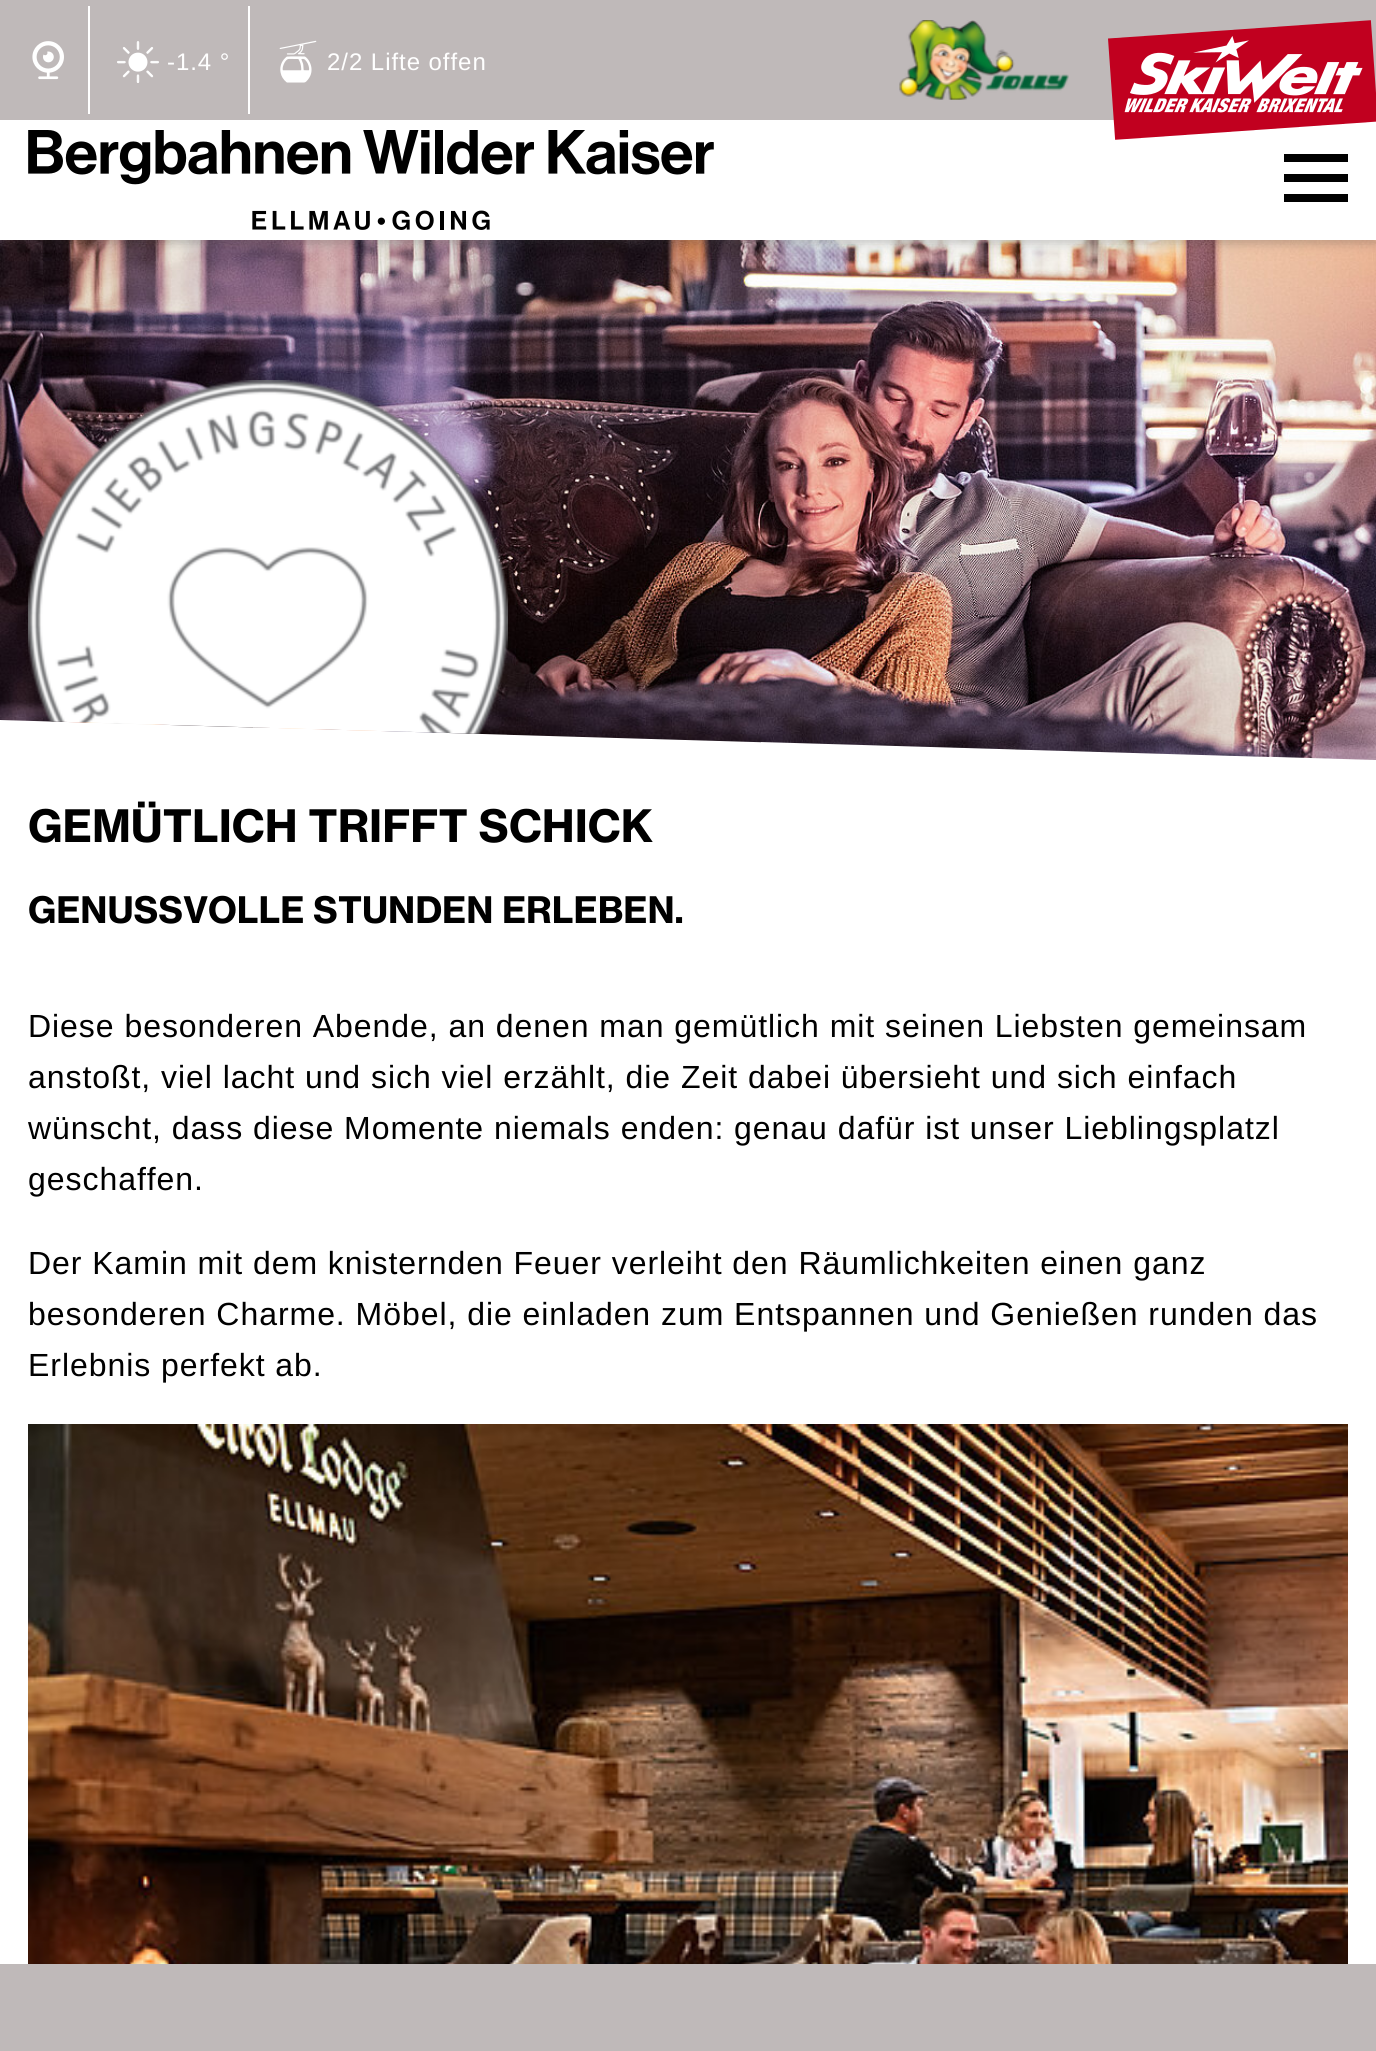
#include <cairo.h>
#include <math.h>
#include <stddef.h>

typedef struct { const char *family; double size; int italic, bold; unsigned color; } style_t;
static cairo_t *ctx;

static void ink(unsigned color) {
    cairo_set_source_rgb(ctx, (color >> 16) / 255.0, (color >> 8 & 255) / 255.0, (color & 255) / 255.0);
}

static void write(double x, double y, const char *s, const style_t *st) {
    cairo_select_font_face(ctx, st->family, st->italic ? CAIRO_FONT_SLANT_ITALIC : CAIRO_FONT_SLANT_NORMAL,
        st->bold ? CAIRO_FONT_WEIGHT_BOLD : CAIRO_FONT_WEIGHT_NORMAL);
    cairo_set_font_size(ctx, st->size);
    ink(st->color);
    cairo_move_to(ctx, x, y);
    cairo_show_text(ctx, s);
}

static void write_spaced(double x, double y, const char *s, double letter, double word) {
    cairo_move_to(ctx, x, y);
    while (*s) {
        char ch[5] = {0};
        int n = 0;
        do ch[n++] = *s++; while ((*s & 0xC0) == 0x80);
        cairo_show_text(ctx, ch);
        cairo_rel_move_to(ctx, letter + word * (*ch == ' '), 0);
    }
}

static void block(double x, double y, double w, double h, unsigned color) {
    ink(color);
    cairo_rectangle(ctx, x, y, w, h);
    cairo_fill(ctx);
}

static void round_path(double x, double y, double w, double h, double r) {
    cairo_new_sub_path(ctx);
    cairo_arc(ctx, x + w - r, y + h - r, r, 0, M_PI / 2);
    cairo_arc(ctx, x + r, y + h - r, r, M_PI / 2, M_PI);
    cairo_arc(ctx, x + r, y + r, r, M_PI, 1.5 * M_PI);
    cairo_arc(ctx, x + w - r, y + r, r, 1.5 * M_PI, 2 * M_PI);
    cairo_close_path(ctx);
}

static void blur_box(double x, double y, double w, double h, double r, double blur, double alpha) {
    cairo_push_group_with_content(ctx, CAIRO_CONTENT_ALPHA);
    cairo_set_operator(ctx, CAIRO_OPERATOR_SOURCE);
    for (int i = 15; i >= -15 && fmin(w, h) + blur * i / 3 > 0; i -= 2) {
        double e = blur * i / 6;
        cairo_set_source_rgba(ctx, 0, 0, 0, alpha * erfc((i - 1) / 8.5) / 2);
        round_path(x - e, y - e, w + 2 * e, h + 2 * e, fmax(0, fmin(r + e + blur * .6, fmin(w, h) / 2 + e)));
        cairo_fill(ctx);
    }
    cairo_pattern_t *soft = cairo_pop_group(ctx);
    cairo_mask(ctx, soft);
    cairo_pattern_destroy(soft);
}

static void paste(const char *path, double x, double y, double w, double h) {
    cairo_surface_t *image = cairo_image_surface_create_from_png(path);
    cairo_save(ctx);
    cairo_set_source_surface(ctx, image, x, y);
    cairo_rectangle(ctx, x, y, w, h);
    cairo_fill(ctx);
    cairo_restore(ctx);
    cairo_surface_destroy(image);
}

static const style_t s1 = {"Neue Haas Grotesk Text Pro", 44, 0, 1, 0x000000};
static const style_t s2 = {"Neue Haas Grotesk Text Pro", 36, 0, 1, 0x000000};

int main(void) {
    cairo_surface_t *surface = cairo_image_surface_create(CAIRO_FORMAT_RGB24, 1376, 2051);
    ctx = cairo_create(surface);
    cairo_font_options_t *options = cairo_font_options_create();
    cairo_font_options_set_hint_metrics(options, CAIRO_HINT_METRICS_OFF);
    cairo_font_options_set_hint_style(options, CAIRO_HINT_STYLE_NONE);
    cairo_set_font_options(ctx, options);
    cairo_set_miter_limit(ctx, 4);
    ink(0xffffff);
    cairo_paint(ctx);
    paste("pic7.png", 0, 240, 1376, 520);
    ink(0x323232);
    blur_box(0, 4, 1376, 240, 0, 5, 0.25);
    block(0, 120, 1376, 120, 0xffffff);
    block(0, 0, 1376, 120, 0xbfb9b9);
    block(88, 6, 2, 108, 0xffffff);
    paste("pic1.png", 32, 41, 32, 39);
    block(248, 6, 2, 108, 0xffffff);
    paste("pic2.png", 117, 41, 42, 42);
    cairo_select_font_face(ctx, "Liberation Sans", CAIRO_FONT_SLANT_NORMAL, CAIRO_FONT_WEIGHT_NORMAL);
    cairo_set_font_size(ctx, 24);
    write_spaced(167, 70, "-1.4 °", 0.95, 0);
    paste("pic3.png", 279, 40, 38, 43);
    write_spaced(327, 70, "2/2 Lifte offen", 0.95, 0);
    paste("pic4.png", 899, 20, 170, 80);
    paste("pic5.png", 1108, 20, 268, 120);
    paste("pic6.png", 28, 130, 686, 100);
    block(1284, 154, 64, 8, 0x000000);
    block(1284, 174, 64, 8, 0x000000);
    block(1284, 194, 64, 8, 0x000000);
    paste("pic8.png", 28, 380, 480, 354);
    write(28, 842, "GEMÜTLICH TRIFFT SCHICK", &s1);
    write(28, 923, "GENUSSVOLLE STUNDEN ERLEBEN.", &s2);
    cairo_select_font_face(ctx, "Liberation Sans", CAIRO_FONT_SLANT_NORMAL, CAIRO_FONT_WEIGHT_NORMAL);
    cairo_set_font_size(ctx, 32);
    write_spaced(28, 1037, "Diese besonderen Abende, an denen man gemütlich mit seinen Liebsten gemeinsam", 0.95, 0);
    write_spaced(28, 1088, "anstoßt, viel lacht und sich viel erzählt, die Zeit dabei übersieht und sich einfach", 0.95, 0);
    write_spaced(28, 1139, "wünscht, dass diese Momente niemals enden: genau dafür ist unser Lieblingsplatzl", 0.95, 0);
    write_spaced(28, 1190, "geschaffen.", 0.95, 0);
    write_spaced(28, 1274, "Der Kamin mit dem knisternden Feuer verleiht den Räumlichkeiten einen ganz", 0.95, 0);
    write_spaced(28, 1325, "besonderen Charme. Möbel, die einladen zum Entspannen und Genießen runden das", 0.95, 0);
    write_spaced(28, 1376, "Erlebnis perfekt ab.", 0.95, 0);
    paste("pic9.png", 28, 1424, 1320, 540);
    block(0, 1964, 1376, 87, 0xbfb9b9);
    cairo_surface_write_to_png(surface, "screenshot.png");
    cairo_font_options_destroy(options);
    cairo_destroy(ctx);
    cairo_surface_destroy(surface);
    return 0;
}
